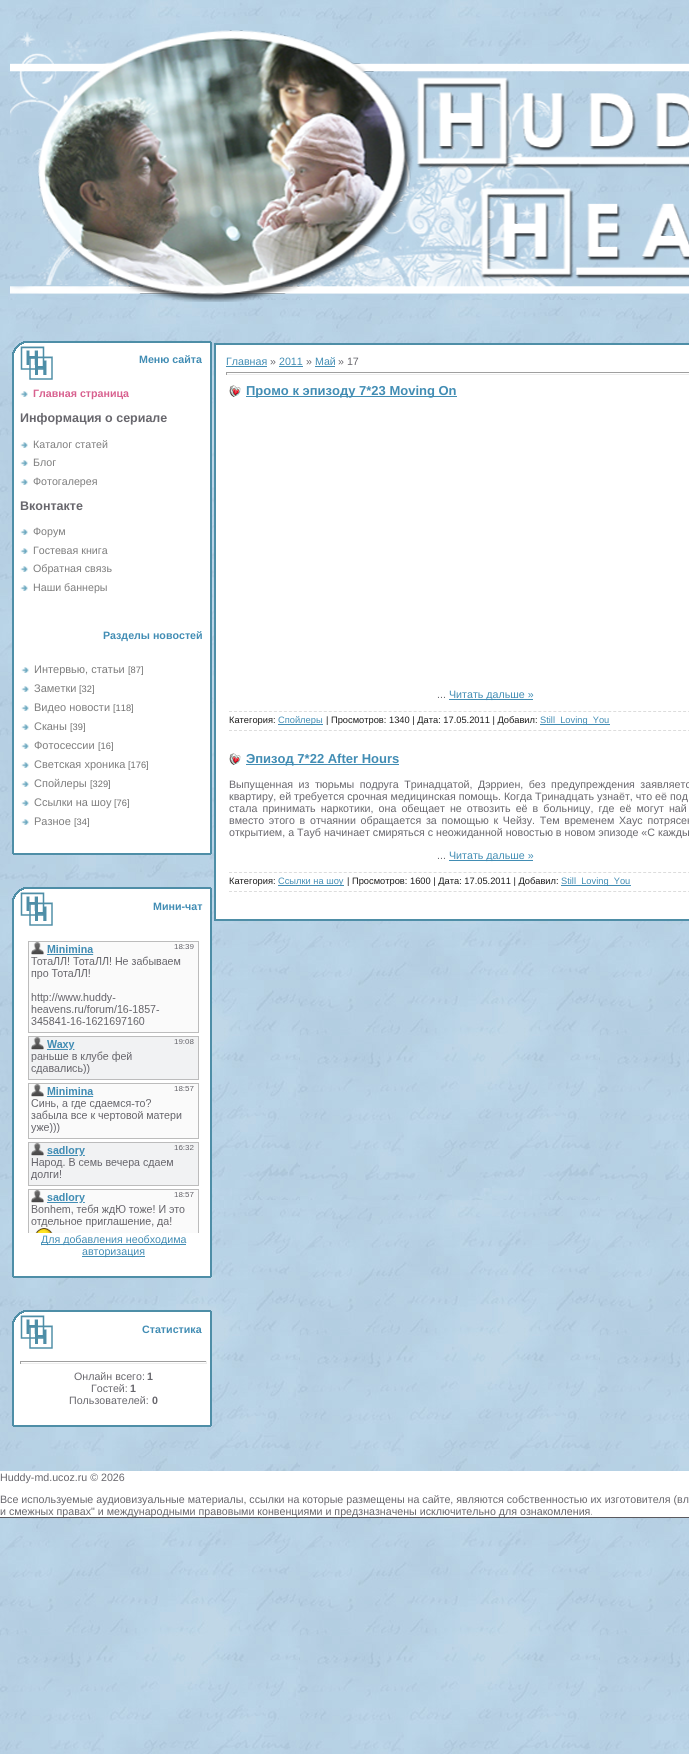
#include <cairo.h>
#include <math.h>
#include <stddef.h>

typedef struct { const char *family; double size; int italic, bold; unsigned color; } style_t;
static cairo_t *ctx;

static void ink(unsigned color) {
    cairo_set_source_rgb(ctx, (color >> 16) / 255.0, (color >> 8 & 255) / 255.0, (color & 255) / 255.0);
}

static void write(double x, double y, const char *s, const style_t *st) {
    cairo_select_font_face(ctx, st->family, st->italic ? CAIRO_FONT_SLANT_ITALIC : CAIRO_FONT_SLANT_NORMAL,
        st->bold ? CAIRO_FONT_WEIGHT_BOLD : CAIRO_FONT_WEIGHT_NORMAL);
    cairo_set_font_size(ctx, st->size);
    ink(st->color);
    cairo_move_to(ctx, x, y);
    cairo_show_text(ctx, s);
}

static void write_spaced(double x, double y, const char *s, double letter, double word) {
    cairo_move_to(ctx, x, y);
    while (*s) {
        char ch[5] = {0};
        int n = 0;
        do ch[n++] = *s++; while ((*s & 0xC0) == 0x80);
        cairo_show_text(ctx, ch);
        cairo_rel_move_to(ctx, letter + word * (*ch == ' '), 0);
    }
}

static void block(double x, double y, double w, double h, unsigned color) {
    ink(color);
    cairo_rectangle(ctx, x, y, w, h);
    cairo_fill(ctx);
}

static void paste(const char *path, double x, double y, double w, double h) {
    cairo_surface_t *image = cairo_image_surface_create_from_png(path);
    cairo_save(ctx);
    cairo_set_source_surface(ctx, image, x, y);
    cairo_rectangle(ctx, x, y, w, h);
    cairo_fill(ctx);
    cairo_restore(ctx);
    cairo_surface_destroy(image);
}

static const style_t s1 = {"Liberation Sans", 10.67, 0, 1, 0x428db4};
static const style_t s2 = {"Liberation Sans", 10.67, 0, 1, 0xd8618f};
static const style_t s3 = {"Liberation Sans", 12.5, 0, 1, 0x68676d};
static const style_t s4 = {"Liberation Sans", 10.67, 0, 0, 0x7d7d7d};
static const style_t s5 = {"Liberation Sans", 11, 0, 0, 0x7d7d7d};
static const style_t s6 = {"Liberation Sans", 9.3, 0, 0, 0x6e6e6e};
static const style_t s7 = {"Liberation Sans", 10.67, 0, 0, 0x428db4};
static const style_t s8 = {"Liberation Sans", 10.67, 0, 0, 0x68676d};
static const style_t s9 = {"Liberation Sans", 10.67, 0, 1, 0x68676d};
static const style_t s10 = {"Liberation Sans", 13, 0, 1, 0x428db4};
static const style_t s11 = {"Liberation Sans", 9.3, 0, 0, 0x1a1a1a};
static const style_t s12 = {"Liberation Sans", 9.3, 0, 0, 0x428db4};

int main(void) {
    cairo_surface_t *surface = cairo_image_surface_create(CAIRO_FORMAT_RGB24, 689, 1754);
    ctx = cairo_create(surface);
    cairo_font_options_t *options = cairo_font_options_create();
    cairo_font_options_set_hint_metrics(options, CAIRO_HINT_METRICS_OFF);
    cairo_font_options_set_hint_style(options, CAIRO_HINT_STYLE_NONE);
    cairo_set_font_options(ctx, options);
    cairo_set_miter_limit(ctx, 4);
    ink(0xffffff);
    cairo_paint(ctx);
    paste("pic1.png", 0, 0, 689, 1754);
    paste("pic2.png", 10, 30, 679, 272);
    paste("pic3.png", 12, 341, 200, 41);
    write(139, 363, "Меню сайта", &s1);
    paste("pic4.png", 12, 382, 200, 222);
    paste("pic5.png", 20, 391, 8, 6);
    write(33, 397, "Главная страница", &s2);
    write(20, 422, "Информация о сериале", &s3);
    paste("pic5.png", 20, 442, 8, 6);
    write(33, 448, "Каталог статей", &s4);
    paste("pic5.png", 20, 460, 8, 6);
    write(33, 466, "Блог", &s4);
    paste("pic5.png", 20, 479, 8, 6);
    write(33, 485, "Фотогалерея", &s4);
    write(20, 510, "Вконтакте", &s3);
    paste("pic5.png", 20, 529, 8, 6);
    write(33, 535, "Форум", &s4);
    paste("pic5.png", 20, 548, 8, 6);
    write(33, 554, "Гостевая книга", &s4);
    paste("pic5.png", 20, 566, 8, 6);
    write(33, 572, "Обратная связь", &s4);
    paste("pic5.png", 20, 585, 8, 6);
    write(33, 591, "Наши баннеры", &s4);
    paste("pic6.png", 12, 604, 200, 53);
    write(103, 639, "Разделы новостей", &s1);
    paste("pic7.png", 12, 657, 200, 182);
    paste("pic5.png", 21, 667, 8, 6);
    write(34, 673, "Интервью, статьи", &s5);
    write(128, 673, "[87]", &s6);
    paste("pic5.png", 21, 686, 8, 6);
    write(34, 692, "Заметки", &s5);
    write(79, 692, "[32]", &s6);
    paste("pic5.png", 21, 705, 8, 6);
    write(34, 711, "Видео новости", &s5);
    write(113, 711, "[118]", &s6);
    paste("pic5.png", 21, 724, 8, 6);
    write(34, 730, "Сканы", &s5);
    write(70, 730, "[39]", &s6);
    paste("pic5.png", 21, 743, 8, 6);
    write(34, 749, "Фотосессии", &s5);
    write(98, 749, "[16]", &s6);
    paste("pic5.png", 21, 762, 8, 6);
    write(34, 768, "Светская хроника", &s5);
    write(128, 768, "[176]", &s6);
    paste("pic5.png", 21, 781, 8, 6);
    write(34, 787, "Спойлеры", &s5);
    write(90, 787, "[329]", &s6);
    paste("pic5.png", 21, 800, 8, 6);
    write(34, 806, "Ссылки на шоу", &s5);
    write(114, 806, "[76]", &s6);
    paste("pic5.png", 21, 819, 8, 6);
    write(34, 825, "Разное", &s5);
    write(74, 825, "[34]", &s6);
    paste("pic8.png", 12, 839, 200, 16);
    paste("pic9.png", 12, 887, 200, 41);
    write(153, 910, "Мини-чат", &s1);
    paste("pic10.png", 12, 928, 200, 334);
    paste("pic11.png", 28, 941, 171, 292);
    block(41, 1244, 145, 1, 0x428db4);
    write(41, 1243, "Для добавления необходима", &s7);
    block(82, 1256, 63, 1, 0x428db4);
    write(82, 1255, "авторизация", &s7);
    paste("pic12.png", 12, 1262, 200, 16);
    paste("pic13.png", 12, 1310, 200, 41);
    write(142, 1333, "Статистика", &s1);
    paste("pic14.png", 12, 1351, 200, 60);
    block(20, 1361, 187, 1, 0x9f9f9f);
    block(206, 1361, 1, 3, 0xeeeeee);
    block(20, 1363, 187, 1, 0xeeeeee);
    block(20, 1361, 1, 3, 0x9f9f9f);
    write(74, 1380, "Онлайн всего:", &s8);
    write(147, 1380, "1", &s9);
    write(91, 1392, "Гостей:", &s8);
    write(130, 1392, "1", &s9);
    write(69, 1404, "Пользователей:", &s8);
    write(152, 1404, "0", &s9);
    paste("pic15.png", 12, 1411, 200, 16);
    ink(0xffffff);
    cairo_rectangle(ctx, 215, 344, 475, 576);
    cairo_fill_preserve(ctx);
    ink(0x4e8ea7);
    cairo_stroke(ctx);
    write(226, 365, "Главная", &s7);
    block(226, 366, 41, 1, 0x428db4);
    write(270, 365, "»", &s8);
    write(279, 365, "2011", &s7);
    block(279, 366, 24, 1, 0x428db4);
    write(306, 365, "»", &s8);
    write(315, 365, "Май", &s7);
    block(315, 366, 20, 1, 0x428db4);
    write(338, 365, "» 17", &s8);
    block(226, 372, 463, 1, 0x9f9f9f);
    block(226, 374, 463, 1, 0xeeeeee);
    block(226, 372, 1, 3, 0x9f9f9f);
    paste("pic16.png", 229, 385, 12, 12);
    block(246, 396, 211, 1, 0x428db4);
    write(246, 395, "Промо к эпизоду 7*23 Moving On", &s10);
    write(437, 698, "...", &s8);
    block(449, 699, 84, 1, 0x428db4);
    write(449, 698, "Читать дальше »", &s7);
    cairo_new_path(ctx);
    cairo_move_to(ctx, 229, 711.5);
    cairo_line_to(ctx, 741, 711.5);
    ink(0xdddddd);
    cairo_set_line_width(ctx, 1);
    cairo_set_dash(ctx, (double[]){3, 1.99}, 2, 0);
    cairo_stroke(ctx);
    cairo_new_path(ctx);
    cairo_move_to(ctx, 229, 730.5);
    cairo_line_to(ctx, 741, 730.5);
    cairo_stroke(ctx);
    write(229, 723, "Категория:", &s11);
    block(278, 724, 45, 1, 0x428db4);
    write(278, 723, "Спойлеры", &s12);
    write(326, 723, "| Просмотров: 1340 | Дата: 17.05.2011 | Добавил:", &s11);
    block(540, 724, 70, 1, 0x428db4);
    write(540, 723, "Still_Loving_You", &s12);
    paste("pic16.png", 229, 753, 12, 12);
    block(246, 764, 153, 1, 0x428db4);
    write(246, 763, "Эпизод 7*22 After Hours", &s10);
    cairo_select_font_face(ctx, "Liberation Sans", CAIRO_FONT_SLANT_NORMAL, CAIRO_FONT_WEIGHT_NORMAL);
    cairo_set_font_size(ctx, 10.67);
    ink(0x68676d);
    write_spaced(229, 788, "Выпущенная из тюрьмы подруга Тринадцатой, Дэрриен, без предупреждения заявляетс", 0, 2.5);
    write(229, 800, "квартиру, ей требуется срочная медицинская помощь. Когда Тринадцать узнаёт, что её под", &s8);
    write_spaced(229, 812, "стала принимать наркотики, она обещает не отвозить её в больницу, где её могут най", 0, 2.1);
    write_spaced(229, 824, "вместо этого в отчаянии обращается за помощью к Чейзу. Тем временем Хаус потрясен", 0, 1.75);
    write(229, 836, "открытием, а Тауб начинает смиряться с неожиданной новостью в новом эпизоде «С кажды", &s8);
    write(437, 859, "...", &s8);
    block(449, 860, 84, 1, 0x428db4);
    write(449, 859, "Читать дальше »", &s7);
    cairo_new_path(ctx);
    cairo_move_to(ctx, 229, 872.5);
    cairo_line_to(ctx, 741, 872.5);
    ink(0xdddddd);
    cairo_stroke(ctx);
    cairo_new_path(ctx);
    cairo_move_to(ctx, 229, 891.5);
    cairo_line_to(ctx, 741, 891.5);
    cairo_stroke(ctx);
    write(229, 884, "Категория:", &s11);
    block(278, 885, 66, 1, 0x428db4);
    write(278, 884, "Ссылки на шоу", &s12);
    write(347, 884, "| Просмотров: 1600 | Дата: 17.05.2011 | Добавил:", &s11);
    block(561, 885, 70, 1, 0x428db4);
    write(561, 884, "Still_Loving_You", &s12);
    block(0, 1471, 689, 46, 0xffffff);
    block(0, 1517, 689, 1, 0x5b5a5f);
    write(0, 1481, "Huddy-md.ucoz.ru © 2026", &s8);
    write(0, 1503, "Все используемые аудиовизуальные материалы, ссылки на которые размещены на сайте, являются собственностью их изготовителя (вл", &s8);
    write(0, 1515, "и смежных правах\" и международными правовыми конвенциями и предзназначены исключительно для ознакомления.", &s8);
    cairo_surface_write_to_png(surface, "screenshot.png");
    cairo_font_options_destroy(options);
    cairo_destroy(ctx);
    cairo_surface_destroy(surface);
    return 0;
}
